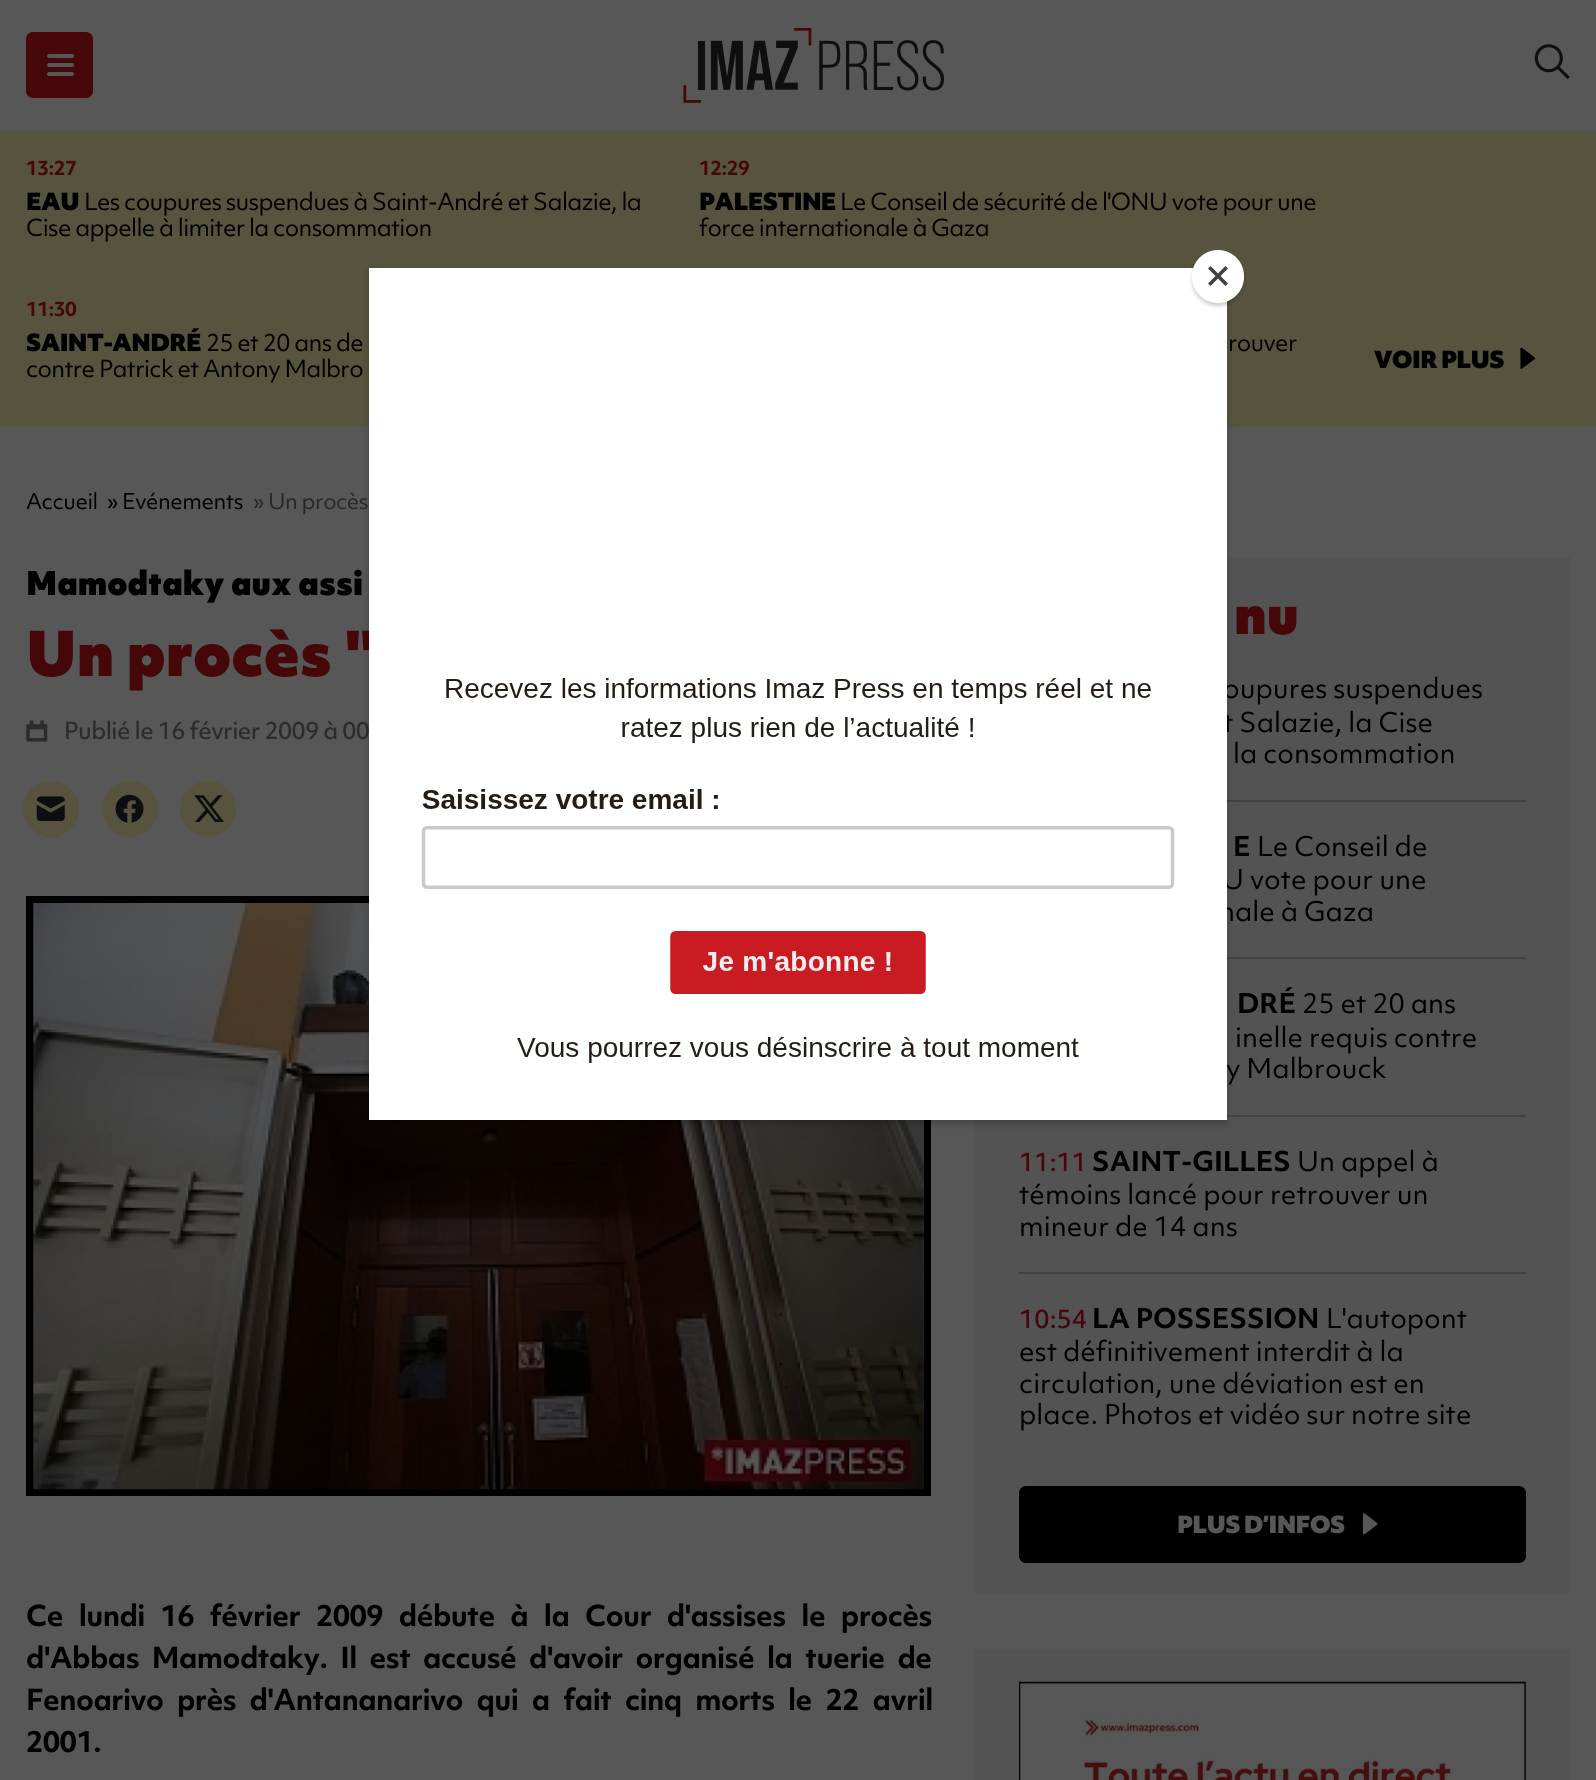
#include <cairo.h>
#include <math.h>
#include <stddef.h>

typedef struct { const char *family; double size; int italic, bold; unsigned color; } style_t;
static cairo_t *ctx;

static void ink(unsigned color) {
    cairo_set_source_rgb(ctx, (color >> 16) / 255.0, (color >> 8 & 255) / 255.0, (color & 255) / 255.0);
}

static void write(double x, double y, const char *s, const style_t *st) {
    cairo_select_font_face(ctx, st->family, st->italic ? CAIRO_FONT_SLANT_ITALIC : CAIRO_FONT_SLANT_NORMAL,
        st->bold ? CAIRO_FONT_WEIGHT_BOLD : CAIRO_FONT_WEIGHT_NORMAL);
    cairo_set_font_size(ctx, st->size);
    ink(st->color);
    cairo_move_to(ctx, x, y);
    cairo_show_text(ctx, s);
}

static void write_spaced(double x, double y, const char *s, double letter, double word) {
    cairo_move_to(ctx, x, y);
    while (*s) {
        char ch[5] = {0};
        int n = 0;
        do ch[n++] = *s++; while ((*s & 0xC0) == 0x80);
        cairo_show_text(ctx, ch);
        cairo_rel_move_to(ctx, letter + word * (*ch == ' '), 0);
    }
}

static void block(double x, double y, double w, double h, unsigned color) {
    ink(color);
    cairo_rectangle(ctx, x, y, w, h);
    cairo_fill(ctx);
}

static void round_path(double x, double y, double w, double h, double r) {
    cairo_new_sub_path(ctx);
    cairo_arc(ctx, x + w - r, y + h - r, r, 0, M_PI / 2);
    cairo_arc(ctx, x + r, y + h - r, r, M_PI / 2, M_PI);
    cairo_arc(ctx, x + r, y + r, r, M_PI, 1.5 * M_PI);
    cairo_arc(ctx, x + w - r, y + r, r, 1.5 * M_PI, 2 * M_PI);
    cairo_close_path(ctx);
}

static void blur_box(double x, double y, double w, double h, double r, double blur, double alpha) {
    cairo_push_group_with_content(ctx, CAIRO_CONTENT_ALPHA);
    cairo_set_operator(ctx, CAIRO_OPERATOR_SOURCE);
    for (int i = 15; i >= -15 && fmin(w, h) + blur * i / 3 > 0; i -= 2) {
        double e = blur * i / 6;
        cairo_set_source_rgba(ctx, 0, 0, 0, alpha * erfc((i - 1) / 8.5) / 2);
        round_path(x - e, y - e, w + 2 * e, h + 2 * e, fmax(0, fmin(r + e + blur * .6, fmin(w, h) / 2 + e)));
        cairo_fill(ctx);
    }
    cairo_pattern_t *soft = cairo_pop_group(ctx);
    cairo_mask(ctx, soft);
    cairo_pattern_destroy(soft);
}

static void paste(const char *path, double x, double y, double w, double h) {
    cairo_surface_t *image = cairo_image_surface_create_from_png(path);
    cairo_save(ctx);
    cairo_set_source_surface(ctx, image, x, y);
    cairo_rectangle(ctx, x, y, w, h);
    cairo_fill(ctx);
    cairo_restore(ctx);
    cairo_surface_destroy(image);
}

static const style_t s1 = {"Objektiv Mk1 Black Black", 31.5, 0, 0, 0x000000};
static const style_t s2 = {"Objektiv Mk1 Black Black", 59.5, 0, 0, 0x450708};
static const style_t s3 = {"Objektiv Mk1 Black Black", 52, 0, 0, 0x450708};
static const style_t s4 = {"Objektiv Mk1", 26.25, 0, 0, 0x000000};
static const style_t s5 = {"Objektiv Mk1", 26.25, 0, 1, 0x000000};
static const style_t s6 = {"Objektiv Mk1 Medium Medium", 24.5, 0, 0, 0x450708};

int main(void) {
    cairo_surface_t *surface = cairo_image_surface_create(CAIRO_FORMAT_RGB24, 1596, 1780);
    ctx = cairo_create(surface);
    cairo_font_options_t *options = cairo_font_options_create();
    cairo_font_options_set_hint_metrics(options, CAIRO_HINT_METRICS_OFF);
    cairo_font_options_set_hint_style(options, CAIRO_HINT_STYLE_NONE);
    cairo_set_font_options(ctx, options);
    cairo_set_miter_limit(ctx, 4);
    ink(0x575757);
    cairo_paint(ctx);
    ink(0x450708);
    round_path(26, 32, 67, 66, 7);
    cairo_fill(ctx);
    ink(0x575757);
    round_path(47, 63, 27, 4, 2);
    cairo_fill(ctx);
    round_path(47, 54, 27, 4, 2);
    cairo_fill(ctx);
    round_path(47, 72, 27, 4, 2);
    cairo_fill(ctx);
    paste("pic1.png", 683, 28, 261, 75);
    paste("pic2.png", 1534, 44, 36, 36);
    block(0, 131, 1596, 296, 0x57533e);
    cairo_select_font_face(ctx, "Objektiv Mk1", CAIRO_FONT_SLANT_NORMAL, CAIRO_FONT_WEIGHT_BOLD);
    cairo_set_font_size(ctx, 19);
    ink(0x450708);
    write_spaced(26, 175, "13:27", -0.5, 0);
    cairo_select_font_face(ctx, "Objektiv Mk1 Black Black", CAIRO_FONT_SLANT_NORMAL, CAIRO_FONT_WEIGHT_NORMAL);
    cairo_set_font_size(ctx, 22.75);
    ink(0x000000);
    write_spaced(26, 210, "EAU", -0.68, 0);
    cairo_select_font_face(ctx, "Objektiv Mk1", CAIRO_FONT_SLANT_NORMAL, CAIRO_FONT_WEIGHT_NORMAL);
    write_spaced(84, 210, "Les coupures suspendues à Saint-André et Salazie, la", -0.68, 0);
    write_spaced(26, 236, "Cise appelle à limiter la consommation", -0.68, 0);
    cairo_select_font_face(ctx, "Objektiv Mk1", CAIRO_FONT_SLANT_NORMAL, CAIRO_FONT_WEIGHT_BOLD);
    cairo_set_font_size(ctx, 19);
    ink(0x450708);
    write_spaced(699, 175, "12:29", -0.5, 0);
    cairo_select_font_face(ctx, "Objektiv Mk1 Black Black", CAIRO_FONT_SLANT_NORMAL, CAIRO_FONT_WEIGHT_NORMAL);
    cairo_set_font_size(ctx, 22.75);
    ink(0x000000);
    write_spaced(699, 210, "PALESTINE", -0.68, 0);
    cairo_select_font_face(ctx, "Objektiv Mk1", CAIRO_FONT_SLANT_NORMAL, CAIRO_FONT_WEIGHT_NORMAL);
    write_spaced(840, 210, "Le Conseil de sécurité de l'ONU vote pour une", -0.68, 0);
    write_spaced(699, 236, "force internationale à Gaza", -0.68, 0);
    cairo_select_font_face(ctx, "Objektiv Mk1", CAIRO_FONT_SLANT_NORMAL, CAIRO_FONT_WEIGHT_BOLD);
    cairo_set_font_size(ctx, 19);
    ink(0x450708);
    write_spaced(26, 316, "11:30", -0.5, 0);
    cairo_select_font_face(ctx, "Objektiv Mk1 Black Black", CAIRO_FONT_SLANT_NORMAL, CAIRO_FONT_WEIGHT_NORMAL);
    cairo_set_font_size(ctx, 22.75);
    ink(0x000000);
    write_spaced(26, 351, "SAINT-ANDRÉ", -0.68, 0);
    cairo_select_font_face(ctx, "Objektiv Mk1", CAIRO_FONT_SLANT_NORMAL, CAIRO_FONT_WEIGHT_NORMAL);
    write_spaced(206, 351, "25 et 20 ans de", -0.68, 0);
    write_spaced(26, 377, "contre Patrick et Antony Malbro", -0.68, 0);
    write_spaced(1228, 351, "rouver", -0.68, 0);
    cairo_select_font_face(ctx, "Objektiv Mk1 Black Black", CAIRO_FONT_SLANT_NORMAL, CAIRO_FONT_WEIGHT_NORMAL);
    write_spaced(1374, 368, "VOIR PLUS", -0.68, 0);
    paste("pic3.png", 1520, 347, 16, 22);
    cairo_select_font_face(ctx, "Objektiv Mk1", CAIRO_FONT_SLANT_NORMAL, CAIRO_FONT_WEIGHT_NORMAL);
    cairo_set_font_size(ctx, 21);
    write_spaced(26, 509, "Accueil", -0.5, 0);
    write_spaced(107, 509, "» Evénements", -0.5, 0);
    ink(0x25282a);
    write_spaced(253, 509, "» Un procès", -0.5, 0);
    write(26, 595, "Mamodtaky aux assi", &s1);
    write(26, 676, "Un procès \"", &s2);
    paste("pic4.png", 26, 720, 22, 22);
    cairo_select_font_face(ctx, "Objektiv Mk1 Medium Medium", CAIRO_FONT_SLANT_NORMAL, CAIRO_FONT_WEIGHT_NORMAL);
    cairo_set_font_size(ctx, 22.75);
    ink(0x2c2c2c);
    write_spaced(64, 739, "Publié le 16 février 2009 à 00", -0.55, 0);
    ink(0x57533e);
    cairo_new_path(ctx);
    cairo_arc(ctx, 51, 809, 28, 0, 2 * M_PI);
    cairo_fill(ctx);
    paste("pic5.png", 36, 796, 29, 25);
    cairo_arc(ctx, 130, 809, 28, 0, 2 * M_PI);
    cairo_fill(ctx);
    paste("pic6.png", 115, 794, 29, 29);
    cairo_arc(ctx, 208, 809, 28, 0, 2 * M_PI);
    cairo_fill(ctx);
    paste("pic7.png", 194, 795, 30, 27);
    block(26, 896, 905, 600, 0x000000);
    paste("pic8.png", 33, 903, 891, 587);
    cairo_select_font_face(ctx, "Objektiv Mk1", CAIRO_FONT_SLANT_NORMAL, CAIRO_FONT_WEIGHT_BOLD);
    cairo_set_font_size(ctx, 28);
    write_spaced(26, 1626, "Ce lundi 16 février 2009 débute à la Cour d'assises le procès", -0.55, 10.1);
    write_spaced(26, 1668, "d'Abbas Mamodtaky. Il est accusé d'avoir organisé la tuerie de", -0.55, 7.25);
    write_spaced(26, 1710, "Fenoarivo près d'Antananarivo qui a fait cinq morts le 22 avril", -0.55, 8);
    write_spaced(26, 1752, "2001.", -0.55, 0);
    block(975, 557, 595, 1037, 0x535353);
    write(1234, 634, "nu", &s3);
    write(1223, 698, "oupures suspendues", &s4);
    write(1223, 732, "t Salazie, la Cise", &s4);
    write(1233, 763, "la consommation", &s4);
    block(1227, 800, 299, 2, 0x424242);
    write(1233, 856, "E", &s5);
    write(1257, 856, "Le Conseil de", &s4);
    write(1222, 889, "U vote pour une", &s4);
    write(1219, 921, "nale à Gaza", &s4);
    block(1227, 957, 299, 2, 0x424242);
    write(1237, 1013, "DRÉ", &s5);
    write(1302, 1013, "25 et 20 ans", &s4);
    write(1235, 1047, "inelle requis contre", &s4);
    write(1226, 1078, "y Malbrouck", &s4);
    block(1227, 1115, 299, 2, 0x424242);
    write(1019, 1171, "11:11", &s6);
    write(1092, 1171, "SAINT-GILLES", &s5);
    write(1297, 1171, "Un appel à", &s4);
    write(1019, 1204, "témoins lancé pour retrouver un", &s4);
    write(1019, 1236, "mineur de 14 ans", &s4);
    block(1019, 1272, 507, 2, 0x424242);
    write(1019, 1328, "10:54", &s6);
    write(1092, 1328, "LA POSSESSION", &s5);
    write(1326, 1328, "L'autopont", &s4);
    write(1019, 1361, "est définitivement interdit à la", &s4);
    write(1019, 1393, "circulation, une déviation est en", &s4);
    write(1019, 1424, "place. Photos et vidéo sur notre site", &s4);
    round_path(1019, 1486, 507, 77, 7);
    cairo_fill(ctx);
    cairo_select_font_face(ctx, "Objektiv Mk1 Black Black", CAIRO_FONT_SLANT_NORMAL, CAIRO_FONT_WEIGHT_NORMAL);
    cairo_set_font_size(ctx, 22.75);
    ink(0x575757);
    write_spaced(1177, 1533, "PLUS D’INFOS", -0.68, 0);
    paste("pic9.png", 1362, 1513, 16, 22);
    block(975, 1650, 595, 130, 0x535353);
    paste("pic10.png", 1019, 1681, 507, 99);
    ink(0x000000);
    blur_box(369, 271, 858, 853, 0, 3.5, 0.2);
    paste("pic11.png", 369, 268, 858, 852);
    blur_box(1192, 254, 52, 52, 26, 2, 0.2);
    ink(0xffffff);
    round_path(1192, 250, 52, 53, 26);
    cairo_fill(ctx);
    ink(0x414141);
    cairo_new_path(ctx);
    cairo_move_to(ctx, 1225.5, 266);
    cairo_line_to(ctx, 1228, 268.5);
    cairo_line_to(ctx, 1210.5, 286);
    cairo_line_to(ctx, 1208, 283.5);
    cairo_close_path(ctx);
    cairo_fill(ctx);
    cairo_new_path(ctx);
    cairo_move_to(ctx, 1208, 268.5);
    cairo_line_to(ctx, 1210.5, 266);
    cairo_line_to(ctx, 1228, 283.5);
    cairo_line_to(ctx, 1225.5, 286);
    cairo_close_path(ctx);
    cairo_fill(ctx);
    cairo_surface_write_to_png(surface, "screenshot.png");
    cairo_font_options_destroy(options);
    cairo_destroy(ctx);
    cairo_surface_destroy(surface);
    return 0;
}
